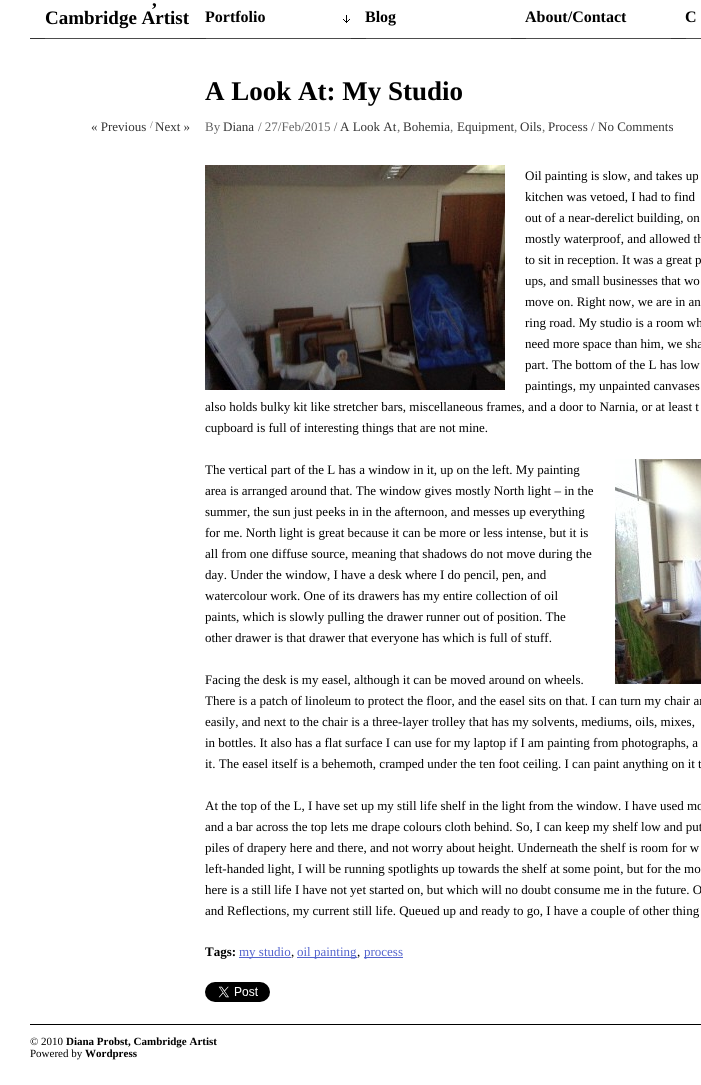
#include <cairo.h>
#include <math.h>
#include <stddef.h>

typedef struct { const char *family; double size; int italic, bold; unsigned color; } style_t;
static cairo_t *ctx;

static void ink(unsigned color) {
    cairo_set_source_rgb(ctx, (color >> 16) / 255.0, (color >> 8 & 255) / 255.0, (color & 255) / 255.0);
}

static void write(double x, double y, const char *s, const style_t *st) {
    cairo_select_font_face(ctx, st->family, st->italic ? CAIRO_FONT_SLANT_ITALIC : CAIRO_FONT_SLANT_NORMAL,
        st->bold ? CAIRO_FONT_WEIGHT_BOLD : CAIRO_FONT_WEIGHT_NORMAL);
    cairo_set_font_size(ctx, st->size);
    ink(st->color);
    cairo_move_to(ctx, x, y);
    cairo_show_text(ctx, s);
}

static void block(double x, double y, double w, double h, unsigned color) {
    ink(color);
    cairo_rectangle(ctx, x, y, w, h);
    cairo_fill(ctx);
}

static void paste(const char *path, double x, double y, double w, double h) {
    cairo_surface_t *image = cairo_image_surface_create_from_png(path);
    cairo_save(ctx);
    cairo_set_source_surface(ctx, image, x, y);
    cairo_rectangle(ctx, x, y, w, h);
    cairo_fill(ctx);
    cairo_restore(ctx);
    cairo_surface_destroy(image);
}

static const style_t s1 = {"Liberation Serif", 19, 0, 1, 0x000000};
static const style_t s2 = {"Liberation Serif", 16, 0, 1, 0x000000};
static const style_t s3 = {"Liberation Serif", 27, 0, 1, 0x000000};
static const style_t s4 = {"Liberation Serif", 13, 0, 0, 0x333333};
static const style_t s5 = {"Liberation Serif", 10, 0, 0, 0x636363};
static const style_t s6 = {"Liberation Serif", 13, 0, 0, 0x636363};
static const style_t s7 = {"Liberation Serif", 13, 0, 0, 0x000000};
static const style_t s8 = {"Liberation Serif", 13, 0, 1, 0x000000};
static const style_t s9 = {"Liberation Serif", 13, 0, 0, 0x5464cd};
static const style_t s10 = {"Liberation Serif", 11, 0, 0, 0x000000};
static const style_t s11 = {"Liberation Serif", 11, 0, 1, 0x000000};

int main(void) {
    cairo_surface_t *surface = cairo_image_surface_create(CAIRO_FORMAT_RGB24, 701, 1085);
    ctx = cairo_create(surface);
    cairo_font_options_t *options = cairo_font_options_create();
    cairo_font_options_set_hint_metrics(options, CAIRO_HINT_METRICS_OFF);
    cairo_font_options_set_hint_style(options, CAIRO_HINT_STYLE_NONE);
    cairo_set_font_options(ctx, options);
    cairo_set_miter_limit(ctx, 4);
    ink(0xffffff);
    cairo_paint(ctx);
    paste("pic1.png", 30, 38, 671, 1);
    write(152, 6, ",", &s1);
    write(45, 24, "Cambridge Artist", &s1);
    paste("pic2.png", 205, 38, 160, 1);
    paste("pic3.png", 343, 15, 7, 8);
    write(205, 22, "Portfolio", &s2);
    paste("pic2.png", 365, 38, 160, 1);
    write(365, 22, "Blog", &s2);
    paste("pic2.png", 525, 38, 160, 1);
    write(525, 22, "About/Contact", &s2);
    block(685, 38, 1, 1, 0x333333);
    write(685, 22, "C", &s2);
    write(205, 100, "A Look At: My Studio", &s3);
    write(91, 131, "« Previous", &s4);
    write(150, 128, "/", &s5);
    write(155, 131, "Next »", &s4);
    write(205, 131, "By", &s6);
    write(223, 131, "Diana", &s4);
    write(258, 131, "/ 27/Feb/2015 /", &s6);
    write(340, 131, "A Look At", &s4);
    write(397, 131, ",", &s6);
    write(403, 131, "Bohemia", &s4);
    write(450, 131, ",", &s6);
    write(457, 131, "Equipment", &s4);
    write(514, 131, ",", &s6);
    write(520, 131, "Oils", &s4);
    write(542, 131, ",", &s6);
    write(548, 131, "Process", &s4);
    write(591, 131, "/", &s6);
    write(598, 131, "No Comments", &s4);
    paste("pic4.png", 205, 165, 300, 225);
    write(525, 180, "Oil painting is slow, and takes up", &s7);
    write(525, 201, "kitchen was vetoed, I had to find", &s7);
    write(525, 222, "out of a near-derelict building, on", &s7);
    write(525, 243, "mostly waterproof, and allowed th", &s7);
    write(525, 264, "to sit in reception. It was a great p", &s7);
    write(525, 285, "ups, and small businesses that wo", &s7);
    write(525, 306, "move on. Right now, we are in an", &s7);
    write(525, 327, "ring road. My studio is a room wh", &s7);
    write(525, 348, "need more space than him, we sha", &s7);
    write(525, 369, "part. The bottom of the L has low", &s7);
    write(525, 390, "paintings, my unpainted canvases", &s7);
    write(205, 411, "also holds bulky kit like stretcher bars, miscellaneous frames, and a door to Narnia, or at least t", &s7);
    write(205, 432, "cupboard is full of interesting things that are not mine.", &s7);
    write(205, 474, "The vertical part of the L has a window in it, up on the left. My painting", &s7);
    paste("pic5.png", 615, 459, 86, 225);
    write(205, 495, "area is arranged around that. The window gives mostly North light – in the", &s7);
    write(205, 516, "summer, the sun just peeks in in the afternoon, and messes up everything", &s7);
    write(205, 537, "for me. North light is great because it can be more or less intense, but it is", &s7);
    write(205, 558, "all from one diffuse source, meaning that shadows do not move during the", &s7);
    write(205, 579, "day. Under the window, I have a desk where I do pencil, pen, and", &s7);
    write(205, 600, "watercolour work. One of its drawers has my entire collection of oil", &s7);
    write(205, 621, "paints, which is slowly pulling the drawer runner out of position. The", &s7);
    write(205, 642, "other drawer is that drawer that everyone has which is full of stuff.", &s7);
    write(205, 684, "Facing the desk is my easel, although it can be moved around on wheels.", &s7);
    write(205, 705, "There is a patch of linoleum to protect the floor, and the easel sits on that. I can turn my chair ar", &s7);
    write(205, 726, "easily, and next to the chair is a three-layer trolley that has my solvents, mediums, oils, mixes,", &s7);
    write(205, 747, "in bottles. It also has a flat surface I can use for my laptop if I am painting from photographs, a", &s7);
    write(205, 768, "it. The easel itself is a behemoth, cramped under the ten foot ceiling. I can paint anything on it t", &s7);
    write(205, 810, "At the top of the L, I have set up my still life shelf in the light from the window. I have used mo", &s7);
    write(205, 831, "and a bar across the top lets me drape colours cloth behind. So, I can keep my shelf low and put", &s7);
    write(205, 852, "piles of drapery here and there, and not worry about height. Underneath the shelf is room for w", &s7);
    write(205, 873, "left-handed light, I will be running spotlights up towards the shelf at some point, but for the mo", &s7);
    write(205, 894, "here is a still life I have not yet started on, but which will no doubt consume me in the future. O", &s7);
    write(205, 915, "and Reflections, my current still life. Queued up and ready to go, I have a couple of other thing", &s7);
    write(205, 956, "Tags:", &s8);
    block(239, 957, 52, 1, 0x5464cd);
    write(239, 956, "my studio", &s9);
    write(291, 956, ",", &s7);
    block(297, 957, 60, 1, 0x5464cd);
    write(297, 956, "oil painting", &s9);
    write(357, 956, ",", &s7);
    block(364, 957, 39, 1, 0x5464cd);
    write(364, 956, "process", &s9);
    paste("pic6.png", 205, 982, 65, 20);
    block(30, 1024, 671, 1, 0x000000);
    write(30, 1045, "© 2010", &s10);
    write(66, 1045, "Diana Probst, Cambridge Artist", &s11);
    write(30, 1057, "Powered by", &s10);
    write(85, 1057, "Wordpress", &s11);
    cairo_surface_write_to_png(surface, "screenshot.png");
    cairo_font_options_destroy(options);
    cairo_destroy(ctx);
    cairo_surface_destroy(surface);
    return 0;
}
